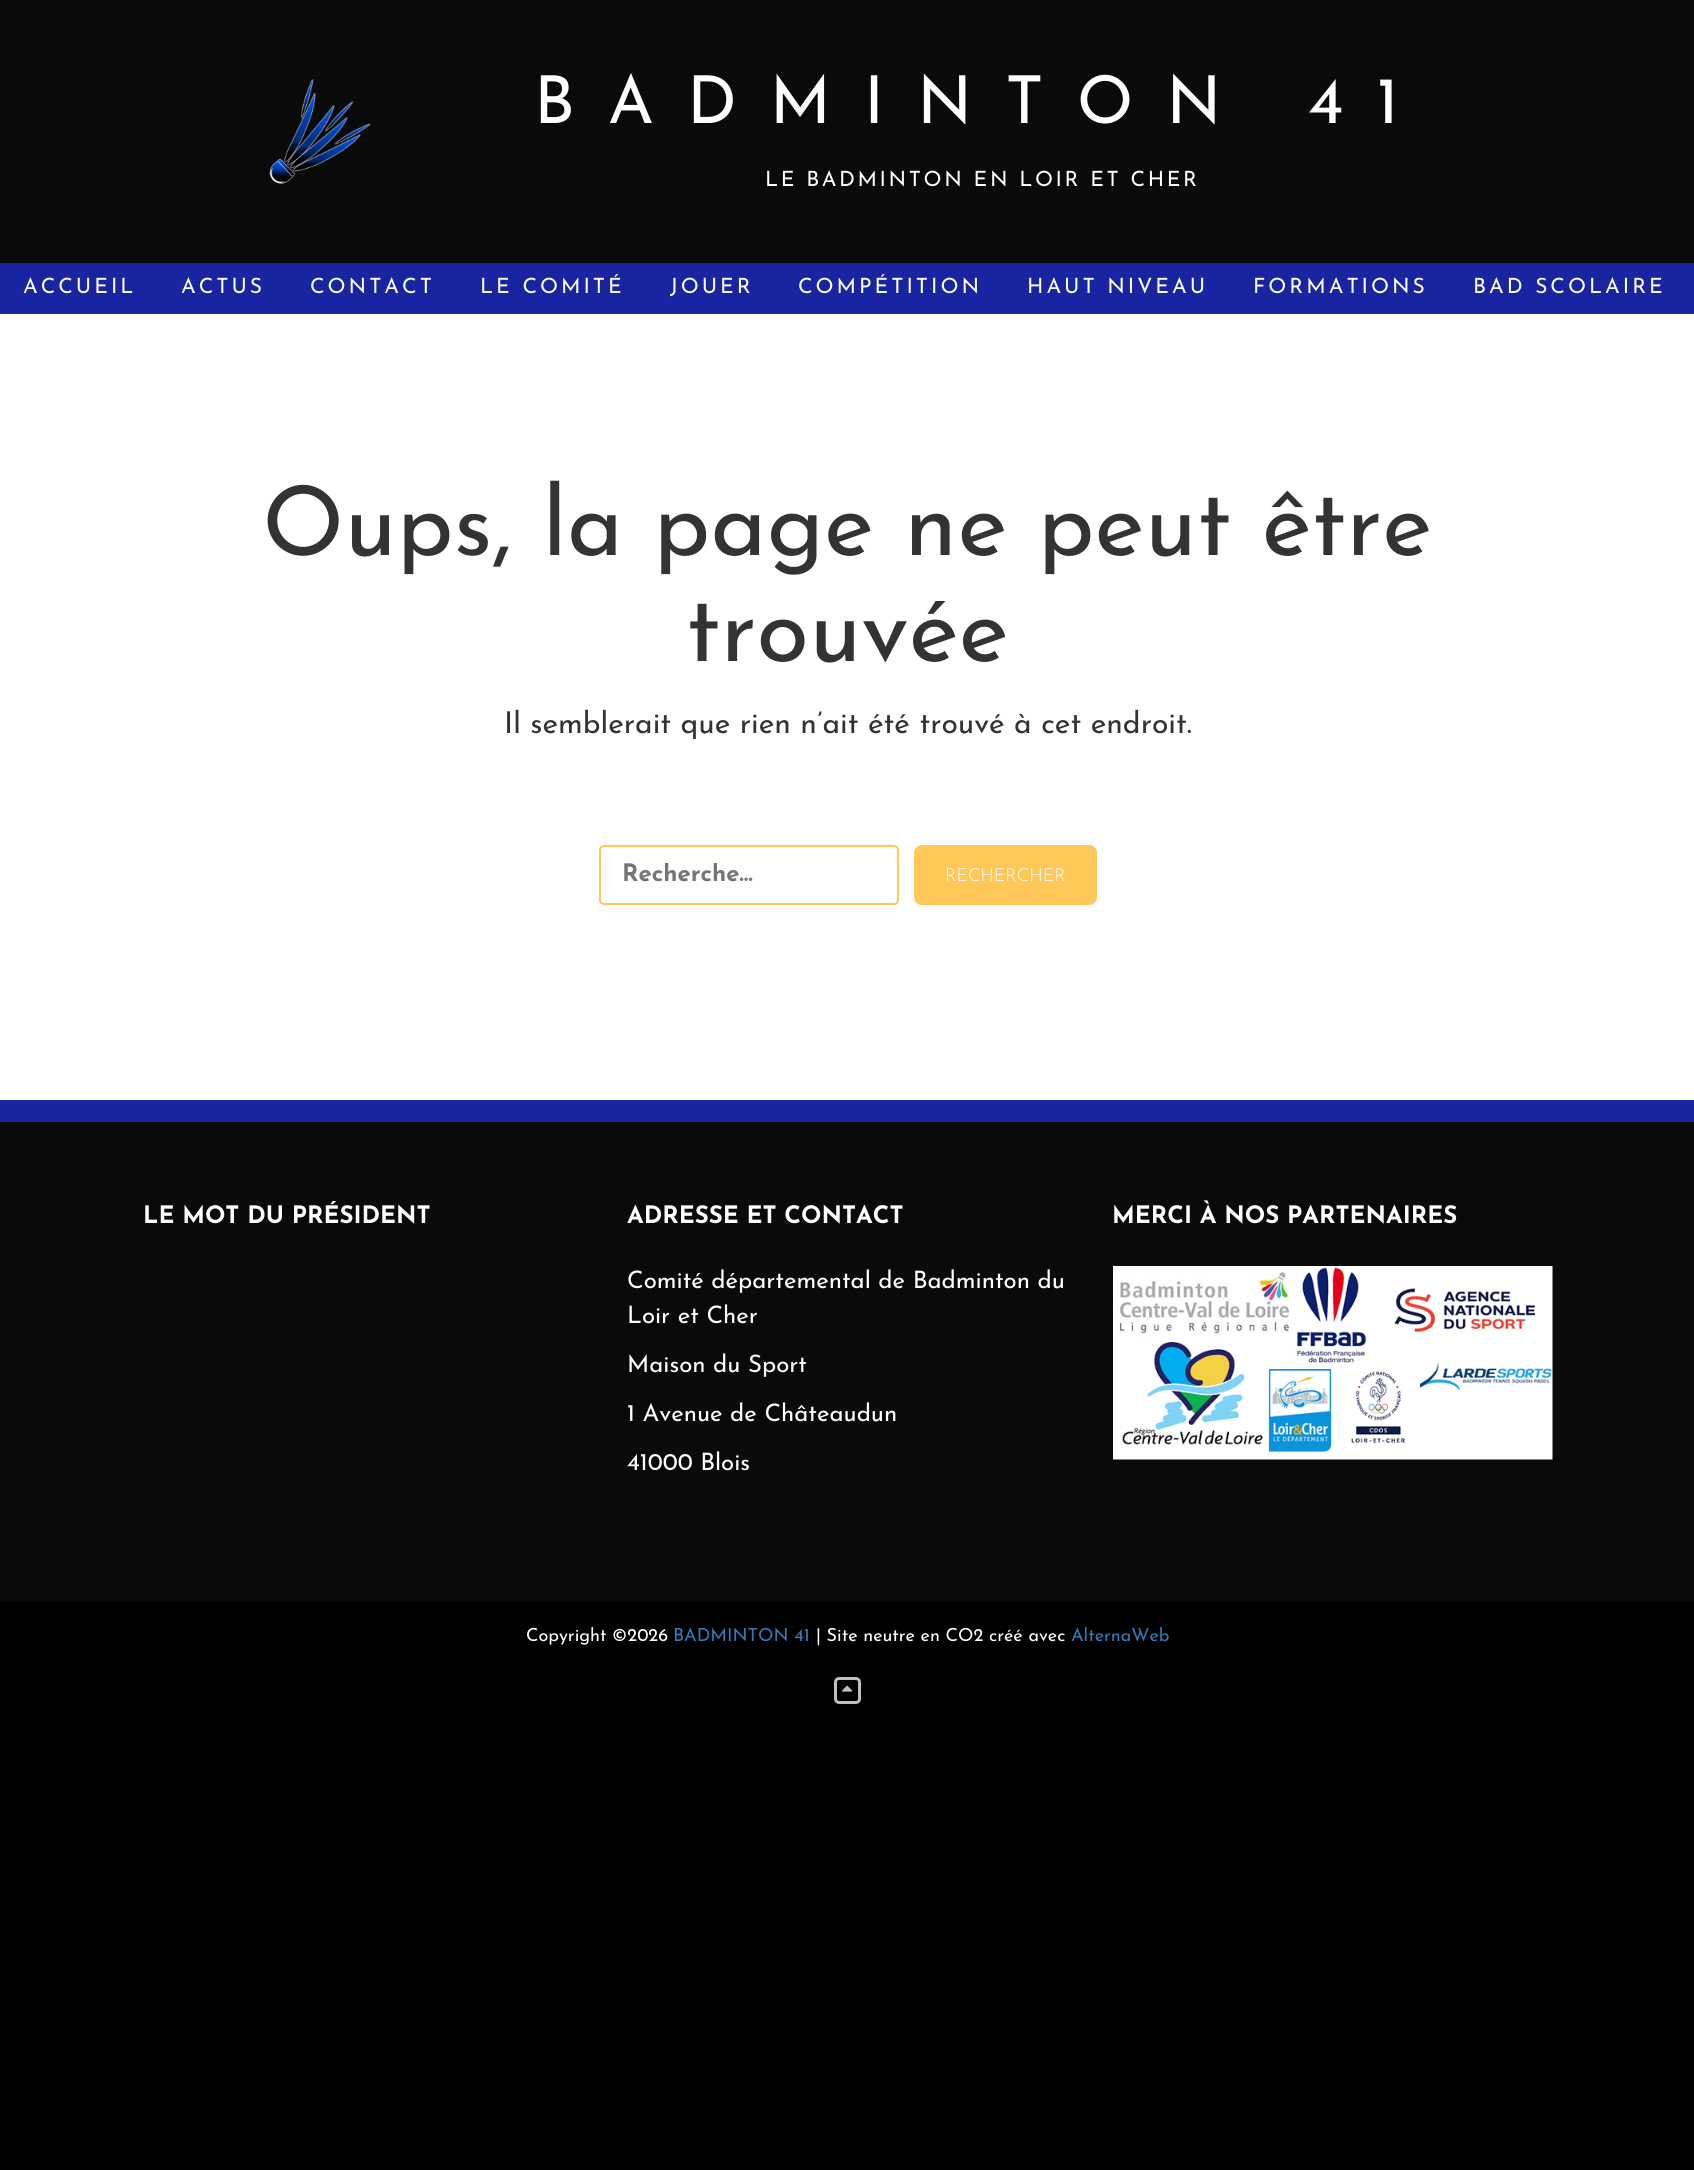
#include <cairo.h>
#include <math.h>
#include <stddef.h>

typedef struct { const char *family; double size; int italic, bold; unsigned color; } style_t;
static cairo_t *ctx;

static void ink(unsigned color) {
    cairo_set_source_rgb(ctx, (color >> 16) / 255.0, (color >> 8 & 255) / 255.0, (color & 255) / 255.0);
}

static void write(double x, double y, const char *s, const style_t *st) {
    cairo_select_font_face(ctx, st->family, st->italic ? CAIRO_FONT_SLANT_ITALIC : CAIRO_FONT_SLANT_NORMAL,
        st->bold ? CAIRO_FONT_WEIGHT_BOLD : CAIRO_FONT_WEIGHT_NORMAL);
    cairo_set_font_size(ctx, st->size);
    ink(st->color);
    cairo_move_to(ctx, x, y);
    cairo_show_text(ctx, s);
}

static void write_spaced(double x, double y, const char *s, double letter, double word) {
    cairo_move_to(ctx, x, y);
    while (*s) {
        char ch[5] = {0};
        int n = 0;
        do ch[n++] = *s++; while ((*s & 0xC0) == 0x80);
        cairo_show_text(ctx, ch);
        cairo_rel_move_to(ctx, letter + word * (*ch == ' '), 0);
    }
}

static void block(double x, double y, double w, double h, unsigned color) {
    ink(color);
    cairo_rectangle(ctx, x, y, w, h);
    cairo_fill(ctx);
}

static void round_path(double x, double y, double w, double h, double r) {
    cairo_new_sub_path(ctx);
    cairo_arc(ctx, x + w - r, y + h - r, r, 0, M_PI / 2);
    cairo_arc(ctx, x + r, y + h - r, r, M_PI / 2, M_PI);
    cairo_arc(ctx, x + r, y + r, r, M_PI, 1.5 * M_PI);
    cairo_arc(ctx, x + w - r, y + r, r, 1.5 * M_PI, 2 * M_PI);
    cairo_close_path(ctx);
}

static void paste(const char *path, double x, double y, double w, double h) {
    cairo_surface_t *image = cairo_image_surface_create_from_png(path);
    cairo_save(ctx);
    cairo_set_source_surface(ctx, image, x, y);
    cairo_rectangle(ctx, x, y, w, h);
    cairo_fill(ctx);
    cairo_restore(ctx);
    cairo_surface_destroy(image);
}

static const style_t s1 = {"Josefin Sans", 96, 0, 0, 0x333333};
static const style_t s2 = {"Josefin Sans", 30, 0, 0, 0x333333};
static const style_t s3 = {"Josefin Sans", 24, 0, 1, 0x757575};
static const style_t s4 = {"Josefin Sans Light", 18, 0, 0, 0xffffff};
static const style_t s5 = {"Josefin Sans", 24, 0, 1, 0xffffff};
static const style_t s6 = {"Josefin Sans", 24, 0, 0, 0xffffff};
static const style_t s7 = {"Josefin Sans", 18, 0, 0, 0xffffff};
static const style_t s8 = {"Josefin Sans", 18, 0, 0, 0x337ab7};

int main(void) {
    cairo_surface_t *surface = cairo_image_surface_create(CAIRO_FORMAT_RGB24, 1694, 2170);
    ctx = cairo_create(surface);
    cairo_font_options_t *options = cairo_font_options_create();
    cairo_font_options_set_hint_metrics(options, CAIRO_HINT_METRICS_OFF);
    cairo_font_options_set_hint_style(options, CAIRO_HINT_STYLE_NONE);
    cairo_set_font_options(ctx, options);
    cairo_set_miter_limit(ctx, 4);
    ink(0x000000);
    cairo_paint(ctx);
    block(0, 314, 1694, 786, 0xffffff);
    block(0, 0, 1694, 263, 0x0a0a0a);
    paste("pic1.png", 269, 79, 102, 105);
    cairo_select_font_face(ctx, "Josefin Sans", CAIRO_FONT_SLANT_NORMAL, CAIRO_FONT_WEIGHT_NORMAL);
    cairo_set_font_size(ctx, 66);
    ink(0xffffff);
    write_spaced(534, 123, "BADMINTON 41", 33, 0);
    cairo_set_font_size(ctx, 21);
    write_spaced(765, 186, "LE BADMINTON EN LOIR ET CHER", 2.6, 0);
    block(0, 263, 1694, 51, 0x1924a0);
    ink(0xffffff);
    write_spaced(23, 293, "ACCUEIL", 3, 0);
    write_spaced(181, 293, "ACTUS", 3, 0);
    write_spaced(310, 293, "CONTACT", 3, 0);
    write_spaced(480, 293, "LE COMITÉ", 3, 0);
    write_spaced(670, 293, "JOUER", 3, 0);
    write_spaced(798, 293, "COMPÉTITION", 3, 0);
    write_spaced(1027, 293, "HAUT NIVEAU", 3, 0);
    write_spaced(1253, 293, "FORMATIONS", 3, 0);
    write_spaced(1473, 293, "BAD SCOLAIRE", 3, 0);
    write(262, 555, "Oups, la page ne peut être", &s1);
    write(686, 661, "trouvée", &s1);
    write(504, 733, "Il semblerait que rien n’ait été trouvé à cet endroit.", &s2);
    round_path(600, 846, 298, 58, 4);
    ink(0xffc859);
    cairo_stroke(ctx);
    cairo_save(ctx);
    cairo_rectangle(ctx, 623, 863, 246, 24);
    cairo_clip(ctx);
    write(622, 881, "Recherche…", &s3);
    cairo_restore(ctx);
    round_path(915, 846, 181, 58, 7);
    cairo_fill_preserve(ctx);
    cairo_stroke(ctx);
    write(945, 881, "RECHERCHER", &s4);
    block(0, 1122, 1694, 480, 0x0a0a0a);
    block(0, 1100, 1694, 22, 0x1924a0);
    write(143, 1223, "LE MOT DU PRÉSIDENT", &s5);
    write(627, 1223, "ADRESSE ET CONTACT", &s5);
    write(627, 1288, "Comité départemental de Badminton du", &s6);
    write(627, 1323, "Loir et Cher", &s6);
    write(627, 1372, "Maison du Sport", &s6);
    write(627, 1421, "1 Avenue de Châteaudun", &s6);
    write(627, 1470, "41000 Blois", &s6);
    write(1112, 1223, "MERCI À NOS PARTENAIRES", &s5);
    paste("pic2.png", 1113, 1266, 440, 194);
    write(526, 1641, "Copyright ©2026", &s7);
    write(673, 1641, "BADMINTON 41", &s8);
    write(816, 1641, "| Site neutre en CO2 créé avec", &s7);
    write(1071, 1641, "AlternaWeb", &s8);
    round_path(835.5, 1678.5, 24, 24, 3.5);
    ink(0xbfbfbf);
    cairo_set_line_width(ctx, 3);
    cairo_stroke(ctx);
    paste("pic3.png", 842, 1685, 11, 7);
    cairo_surface_write_to_png(surface, "screenshot.png");
    cairo_font_options_destroy(options);
    cairo_destroy(ctx);
    cairo_surface_destroy(surface);
    return 0;
}
